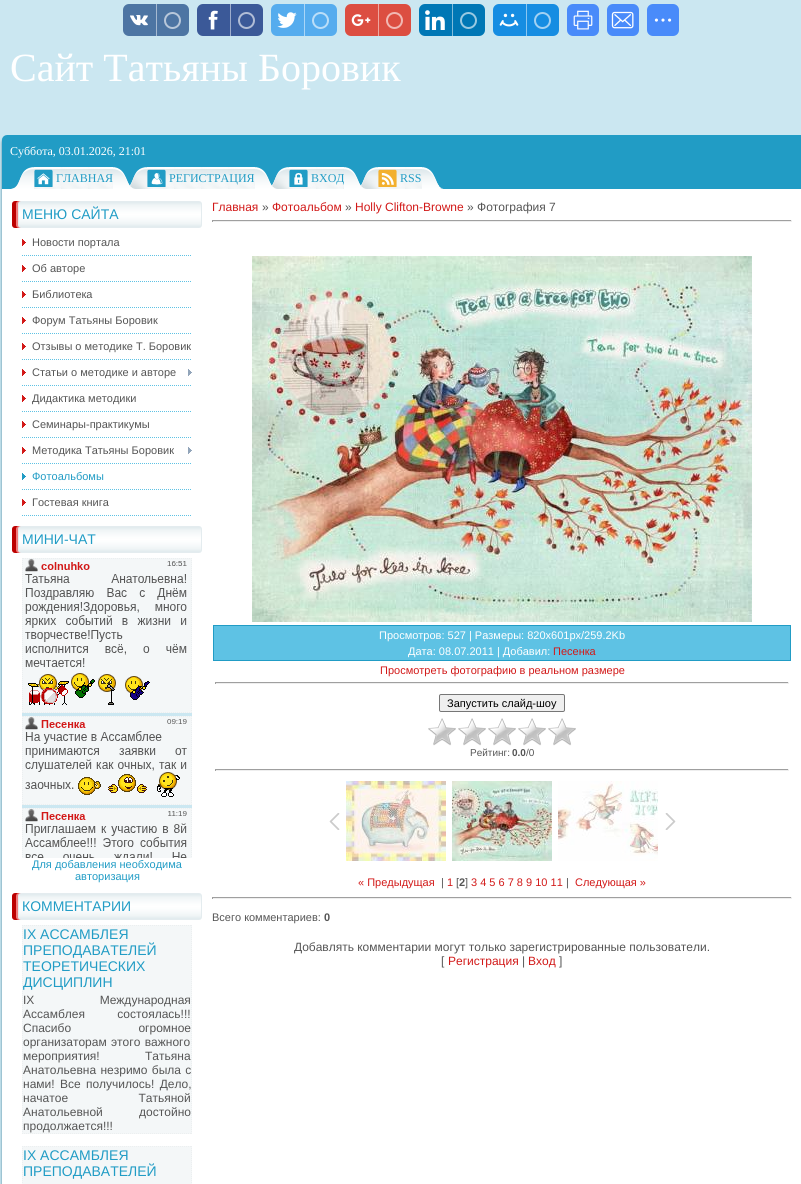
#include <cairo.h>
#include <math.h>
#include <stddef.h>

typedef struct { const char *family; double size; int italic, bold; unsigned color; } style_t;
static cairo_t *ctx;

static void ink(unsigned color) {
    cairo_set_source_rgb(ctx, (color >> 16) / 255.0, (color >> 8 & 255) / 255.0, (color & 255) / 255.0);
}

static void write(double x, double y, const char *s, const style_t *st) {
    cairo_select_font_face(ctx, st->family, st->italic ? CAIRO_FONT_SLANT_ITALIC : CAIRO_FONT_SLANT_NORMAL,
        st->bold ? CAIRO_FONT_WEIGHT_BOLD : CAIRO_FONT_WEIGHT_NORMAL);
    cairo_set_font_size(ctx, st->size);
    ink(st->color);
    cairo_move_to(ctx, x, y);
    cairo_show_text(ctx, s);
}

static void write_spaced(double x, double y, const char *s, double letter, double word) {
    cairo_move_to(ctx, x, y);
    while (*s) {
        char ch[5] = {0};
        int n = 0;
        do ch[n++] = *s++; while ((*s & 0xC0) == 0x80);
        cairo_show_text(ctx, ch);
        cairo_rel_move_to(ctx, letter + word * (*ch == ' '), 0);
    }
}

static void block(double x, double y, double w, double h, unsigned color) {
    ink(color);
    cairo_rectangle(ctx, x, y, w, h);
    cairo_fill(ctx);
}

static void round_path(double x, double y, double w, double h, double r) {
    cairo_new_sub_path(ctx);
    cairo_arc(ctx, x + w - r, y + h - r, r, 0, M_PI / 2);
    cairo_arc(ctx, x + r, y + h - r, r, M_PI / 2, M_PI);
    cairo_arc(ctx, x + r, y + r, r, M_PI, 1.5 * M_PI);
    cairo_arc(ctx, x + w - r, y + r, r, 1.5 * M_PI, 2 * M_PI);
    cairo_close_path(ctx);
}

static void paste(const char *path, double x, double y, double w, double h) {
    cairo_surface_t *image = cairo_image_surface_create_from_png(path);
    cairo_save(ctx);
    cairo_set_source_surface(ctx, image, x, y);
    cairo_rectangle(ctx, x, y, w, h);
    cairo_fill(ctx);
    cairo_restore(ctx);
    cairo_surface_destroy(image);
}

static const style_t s1 = {"Liberation Serif", 40, 0, 0, 0xffffff};
static const style_t s2 = {"Liberation Serif", 12, 0, 0, 0xffffff};
static const style_t s3 = {"Liberation Serif", 12, 0, 0, 0x219cc5};
static const style_t s4 = {"Liberation Sans", 14, 0, 0, 0x219cc5};
static const style_t s5 = {"Liberation Sans", 11, 0, 0, 0x555555};
static const style_t s6 = {"Liberation Sans", 11, 0, 0, 0x219cc5};
static const style_t s7 = {"Liberation Sans", 12, 0, 0, 0x555555};
static const style_t s8 = {"Liberation Sans", 12, 0, 0, 0xd21918};
static const style_t s9 = {"Liberation Sans", 11, 0, 0, 0xffffff};
static const style_t s10 = {"Liberation Sans", 11, 0, 0, 0xd21918};
static const style_t s11 = {"Liberation Sans", 11, 0, 0, 0x000000};
static const style_t s12 = {"Liberation Sans", 10, 0, 0, 0x555555};
static const style_t s13 = {"Liberation Sans", 10, 0, 1, 0x555555};
static const style_t s14 = {"Liberation Sans", 11, 0, 1, 0x555555};

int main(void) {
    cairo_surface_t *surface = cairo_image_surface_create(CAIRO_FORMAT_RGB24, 801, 1184);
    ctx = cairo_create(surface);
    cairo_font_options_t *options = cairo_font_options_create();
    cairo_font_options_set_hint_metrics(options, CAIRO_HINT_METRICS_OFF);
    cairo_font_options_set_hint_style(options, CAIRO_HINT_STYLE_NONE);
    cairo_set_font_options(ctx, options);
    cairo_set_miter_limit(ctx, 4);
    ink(0xcbe7f1);
    cairo_paint(ctx);
    ink(0x4d75a3);
    round_path(123, 4, 66, 32, 6);
    cairo_fill(ctx);
    paste("pic1.png", 130, 15, 18, 11);
    block(156, 4, 1, 32, 0xa6bad1);
    cairo_arc(ctx, 172.5, 20.5, 7.5, 0, 2 * M_PI);
    ink(0xb8c8da);
    cairo_stroke(ctx);
    ink(0x3b5998);
    round_path(197, 4, 66, 32, 6);
    cairo_fill(ctx);
    paste("pic2.png", 208, 10, 10, 20);
    block(230, 4, 1, 32, 0x9daccc);
    cairo_arc(ctx, 246.5, 20.5, 7.5, 0, 2 * M_PI);
    ink(0xb1bdd6);
    cairo_stroke(ctx);
    ink(0x55acee);
    round_path(271, 4, 66, 32, 6);
    cairo_fill(ctx);
    paste("pic3.png", 277, 12, 20, 16);
    block(304, 4, 1, 32, 0xaad6f7);
    cairo_arc(ctx, 320.5, 20.5, 7.5, 0, 2 * M_PI);
    ink(0xbbdef8);
    cairo_stroke(ctx);
    ink(0xdc4e41);
    round_path(345, 4, 66, 32, 6);
    cairo_fill(ctx);
    paste("pic4.png", 351, 14, 20, 12);
    block(378, 4, 1, 32, 0xeea7a0);
    cairo_arc(ctx, 394.5, 20.5, 7.5, 0, 2 * M_PI);
    ink(0xf1b8b3);
    cairo_stroke(ctx);
    ink(0x0077b5);
    round_path(419, 4, 66, 32, 6);
    cairo_fill(ctx);
    paste("pic5.png", 425, 10, 20, 20);
    block(452, 4, 1, 32, 0x80bbda);
    cairo_arc(ctx, 468.5, 20.5, 7.5, 0, 2 * M_PI);
    ink(0x99c9e1);
    cairo_stroke(ctx);
    ink(0x168de2);
    round_path(493, 4, 66, 32, 6);
    cairo_fill(ctx);
    paste("pic6.png", 499, 13, 20, 14);
    block(526, 4, 1, 32, 0x8bc6f1);
    cairo_arc(ctx, 542.5, 20.5, 7.5, 0, 2 * M_PI);
    ink(0xa2d1f3);
    cairo_stroke(ctx);
    ink(0x498bfa);
    round_path(567, 4, 32, 32, 6);
    cairo_fill(ctx);
    paste("pic7.png", 573, 10, 20, 20);
    round_path(607, 4, 32, 32, 6);
    cairo_fill(ctx);
    paste("pic8.png", 611, 11, 23, 18);
    round_path(647, 4, 32, 32, 6);
    cairo_fill(ctx);
    paste("pic9.png", 654, 18, 18, 4);
    write(10, 81, "Сайт Татьяны Боровик", &s1);
    paste("pic10.png", 0, 135, 801, 32);
    write(10, 155, "Суббота, 03.01.2026, 21:01", &s2);
    paste("pic11.png", 0, 167, 801, 23);
    paste("pic12.png", 11, 167, 23, 22);
    paste("pic13.png", 34, 167, 79, 22);
    paste("pic14.png", 34, 169, 19, 18);
    write(56, 182, "ГЛАВНАЯ", &s3);
    paste("pic15.png", 113, 167, 17, 22);
    paste("pic16.png", 130, 167, 17, 22);
    paste("pic17.png", 147, 167, 108, 22);
    paste("pic18.png", 147, 169, 19, 18);
    write(169, 182, "РЕГИСТРАЦИЯ", &s3);
    paste("pic15.png", 255, 167, 17, 22);
    paste("pic16.png", 272, 167, 17, 22);
    paste("pic19.png", 289, 167, 55, 22);
    paste("pic20.png", 289, 169, 19, 18);
    write(311, 182, "ВХОД", &s3);
    paste("pic15.png", 344, 167, 17, 22);
    paste("pic16.png", 361, 167, 17, 22);
    paste("pic21.png", 378, 167, 44, 22);
    paste("pic22.png", 378, 169, 19, 18);
    write(400, 182, "RSS", &s3);
    paste("pic15.png", 422, 167, 17, 22);
    paste("pic23.png", 439, 186, 5, 3);
    paste("pic24.png", 0, 190, 801, 994);
    paste("pic25.png", 12, 201, 190, 27);
    write(22, 219, "МЕНЮ САЙТА", &s4);
    cairo_new_path(ctx);
    cairo_move_to(ctx, 22, 255.5);
    cairo_line_to(ctx, 192, 255.5);
    ink(0x5ec2e4);
    cairo_set_line_width(ctx, 1);
    cairo_set_dash(ctx, (double[]){1, 1}, 2, 0);
    cairo_stroke(ctx);
    paste("pic26.png", 22, 239, 4, 7);
    write(32, 246, "Новости портала", &s5);
    cairo_new_path(ctx);
    cairo_move_to(ctx, 22, 281.5);
    cairo_line_to(ctx, 192, 281.5);
    ink(0x5ec2e4);
    cairo_stroke(ctx);
    paste("pic26.png", 22, 265, 4, 7);
    write(32, 272, "Об авторе", &s5);
    cairo_new_path(ctx);
    cairo_move_to(ctx, 22, 307.5);
    cairo_line_to(ctx, 192, 307.5);
    ink(0x5ec2e4);
    cairo_stroke(ctx);
    paste("pic26.png", 22, 291, 4, 7);
    write(32, 298, "Библиотека", &s5);
    cairo_new_path(ctx);
    cairo_move_to(ctx, 22, 333.5);
    cairo_line_to(ctx, 192, 333.5);
    ink(0x5ec2e4);
    cairo_stroke(ctx);
    paste("pic26.png", 22, 317, 4, 7);
    write(32, 324, "Форум Татьяны Боровик", &s5);
    cairo_new_path(ctx);
    cairo_move_to(ctx, 22, 359.5);
    cairo_line_to(ctx, 192, 359.5);
    ink(0x5ec2e4);
    cairo_stroke(ctx);
    paste("pic26.png", 22, 343, 4, 7);
    write(32, 350, "Отзывы о методике Т. Боровик", &s5);
    cairo_new_path(ctx);
    cairo_move_to(ctx, 22, 385.5);
    cairo_line_to(ctx, 192, 385.5);
    ink(0x5ec2e4);
    cairo_stroke(ctx);
    paste("pic26.png", 22, 369, 4, 7);
    write(32, 376, "Статьи о методике и авторе", &s5);
    paste("pic27.png", 188, 369, 4, 7);
    cairo_new_path(ctx);
    cairo_move_to(ctx, 22, 411.5);
    cairo_line_to(ctx, 192, 411.5);
    ink(0x5ec2e4);
    cairo_stroke(ctx);
    paste("pic26.png", 22, 395, 4, 7);
    write(32, 402, "Дидактика методики", &s5);
    cairo_new_path(ctx);
    cairo_move_to(ctx, 22, 437.5);
    cairo_line_to(ctx, 192, 437.5);
    ink(0x5ec2e4);
    cairo_stroke(ctx);
    paste("pic26.png", 22, 421, 4, 7);
    write(32, 428, "Семинары-практикумы", &s5);
    cairo_new_path(ctx);
    cairo_move_to(ctx, 22, 463.5);
    cairo_line_to(ctx, 192, 463.5);
    ink(0x5ec2e4);
    cairo_stroke(ctx);
    paste("pic26.png", 22, 447, 4, 7);
    write(32, 454, "Методика Татьяны Боровик", &s5);
    paste("pic27.png", 188, 447, 4, 7);
    cairo_new_path(ctx);
    cairo_move_to(ctx, 22, 489.5);
    cairo_line_to(ctx, 192, 489.5);
    ink(0x5ec2e4);
    cairo_stroke(ctx);
    paste("pic28.png", 22, 473, 4, 7);
    write(32, 480, "Фотоальбомы", &s6);
    cairo_new_path(ctx);
    cairo_move_to(ctx, 22, 515.5);
    cairo_line_to(ctx, 192, 515.5);
    ink(0x5ec2e4);
    cairo_stroke(ctx);
    paste("pic26.png", 22, 499, 4, 7);
    write(32, 506, "Гостевая книга", &s5);
    paste("pic25.png", 12, 526, 190, 27);
    write(22, 544, "МИНИ-ЧАТ", &s4);
    paste("pic29.png", 22, 558, 170, 300);
    write(32, 868, "Для добавления необходима", &s6);
    write(75, 880, "авторизация", &s6);
    paste("pic25.png", 12, 893, 190, 27);
    write(22, 911, "КОММЕНТАРИИ", &s4);
    block(22, 925, 170, 209, 0xf4f7f8);
    cairo_new_path(ctx);
    cairo_move_to(ctx, 22, 925.5);
    cairo_line_to(ctx, 192, 925.5);
    ink(0xeceff0);
    cairo_stroke(ctx);
    cairo_new_path(ctx);
    cairo_move_to(ctx, 191.5, 925);
    cairo_line_to(ctx, 191.5, 1134);
    cairo_stroke(ctx);
    cairo_new_path(ctx);
    cairo_move_to(ctx, 22, 1133.5);
    cairo_line_to(ctx, 192, 1133.5);
    cairo_stroke(ctx);
    cairo_new_path(ctx);
    cairo_move_to(ctx, 22.5, 925);
    cairo_line_to(ctx, 22.5, 1134);
    cairo_stroke(ctx);
    write(23, 939, "IX АССАМБЛЕЯ", &s4);
    write(23, 955, "ПРЕПОДАВАТЕЛЕЙ", &s4);
    write(23, 971, "ТЕОРЕТИЧЕСКИХ", &s4);
    write(23, 987, "ДИСЦИПЛИН", &s4);
    cairo_set_font_size(ctx, 12);
    ink(0x555555);
    write_spaced(23, 1004, "IX Международная", 0, 62);
    write_spaced(23, 1018, "Ассамблея состоялась!!!", 0, 29);
    write_spaced(23, 1032, "Спасибо огромное", 0, 64);
    write_spaced(23, 1046, "организаторам этого важного", 0, 1);
    write_spaced(23, 1060, "мероприятия! Татьяна", 0, 42);
    write_spaced(23, 1074, "Анатольевна незримо была с", 0, 1);
    write_spaced(23, 1088, "нами! Все получилось! Дело,", 0, 2);
    write_spaced(23, 1102, "начатое Татьяной", 0, 67);
    write_spaced(23, 1116, "Анатольевной достойно", 0, 33);
    write(23, 1130, "продолжается!!!", &s7);
    block(22, 1146, 170, 38, 0xf4f7f8);
    cairo_new_path(ctx);
    cairo_move_to(ctx, 22, 1146.5);
    cairo_line_to(ctx, 192, 1146.5);
    ink(0xeceff0);
    cairo_stroke(ctx);
    cairo_new_path(ctx);
    cairo_move_to(ctx, 191.5, 1146);
    cairo_line_to(ctx, 191.5, 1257);
    cairo_stroke(ctx);
    cairo_new_path(ctx);
    cairo_move_to(ctx, 22.5, 1146);
    cairo_line_to(ctx, 22.5, 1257);
    cairo_stroke(ctx);
    write(23, 1160, "IX АССАМБЛЕЯ", &s4);
    write(23, 1176, "ПРЕПОДАВАТЕЛЕЙ", &s4);
    write(212, 211, "Главная", &s8);
    write(262, 211, "»", &s7);
    write(272, 211, "Фотоальбом", &s8);
    write(345, 211, "»", &s7);
    write(355, 211, "Holly Clifton-Browne", &s8);
    write(467, 211, "» Фотография 7", &s7);
    block(212, 220, 580, 1, 0x9f9f9f);
    block(791, 220, 1, 2, 0xeeeeee);
    block(212, 221, 580, 1, 0xeeeeee);
    block(212, 220, 1, 2, 0x9f9f9f);
    paste("pic30.png", 252, 256, 500, 366);
    ink(0x5ec2e4);
    cairo_rectangle(ctx, 213.5, 625.5, 577, 35);
    cairo_fill_preserve(ctx);
    ink(0x219cc5);
    cairo_set_dash(ctx, NULL, 0, 0);
    cairo_stroke(ctx);
    write(379, 639, "Просмотров: 527 | Размеры: 820x601px/259.2Kb", &s9);
    write(408, 655, "Дата: 08.07.2011 | Добавил:", &s9);
    write(553, 655, "Песенка", &s10);
    write(380, 674, "Просмотреть фотографию в реальном размере", &s10);
    block(215, 682, 574, 1, 0x9f9f9f);
    block(788, 682, 1, 2, 0xeeeeee);
    block(215, 683, 574, 1, 0xeeeeee);
    block(215, 682, 1, 2, 0x9f9f9f);
    ink(0xefefef);
    round_path(439.5, 694.5, 125, 17, 1.5);
    cairo_fill_preserve(ctx);
    ink(0x767676);
    cairo_stroke(ctx);
    write(447, 707, "Запустить слайд-шоу", &s11);
    paste("pic31.png", 428, 718, 148, 28);
    write(470, 756, "Рейтинг:", &s12);
    write(512, 756, "0.0", &s13);
    write(526, 756, "/0", &s12);
    block(215, 769, 574, 1, 0x9f9f9f);
    block(788, 769, 1, 2, 0xeeeeee);
    block(215, 770, 574, 1, 0xeeeeee);
    block(215, 769, 1, 2, 0x9f9f9f);
    paste("pic32.png", 329, 813, 11, 17);
    paste("pic33.png", 346, 781, 100, 80);
    paste("pic34.png", 452, 781, 100, 80);
    paste("pic35.png", 558, 781, 100, 80);
    paste("pic36.png", 665, 813, 11, 17);
    write(358, 886, "« Предыдущая", &s10);
    write(441, 886, "|", &s5);
    write(447, 886, "1", &s10);
    write(456, 886, "[", &s5);
    write(459, 886, "2", &s14);
    write(465, 886, "]", &s5);
    write(471, 886, "3 4 5 6 7 8 9 10 11", &s10);
    write(566, 886, "|", &s5);
    write(575, 886, "Следующая »", &s10);
    block(212, 897, 580, 1, 0x9f9f9f);
    block(791, 897, 1, 2, 0xeeeeee);
    block(212, 898, 580, 1, 0xeeeeee);
    block(212, 897, 1, 2, 0x9f9f9f);
    write(212, 921, "Всего комментариев:", &s5);
    write(324, 921, "0", &s14);
    write(294, 951, "Добавлять комментарии могут только зарегистрированные пользователи.", &s7);
    write(441, 965, "[", &s7);
    write(448, 965, "Регистрация", &s8);
    write(522, 965, "|", &s7);
    write(528, 965, "Вход", &s8);
    write(559, 965, "]", &s7);
    cairo_surface_write_to_png(surface, "screenshot.png");
    cairo_font_options_destroy(options);
    cairo_destroy(ctx);
    cairo_surface_destroy(surface);
    return 0;
}
